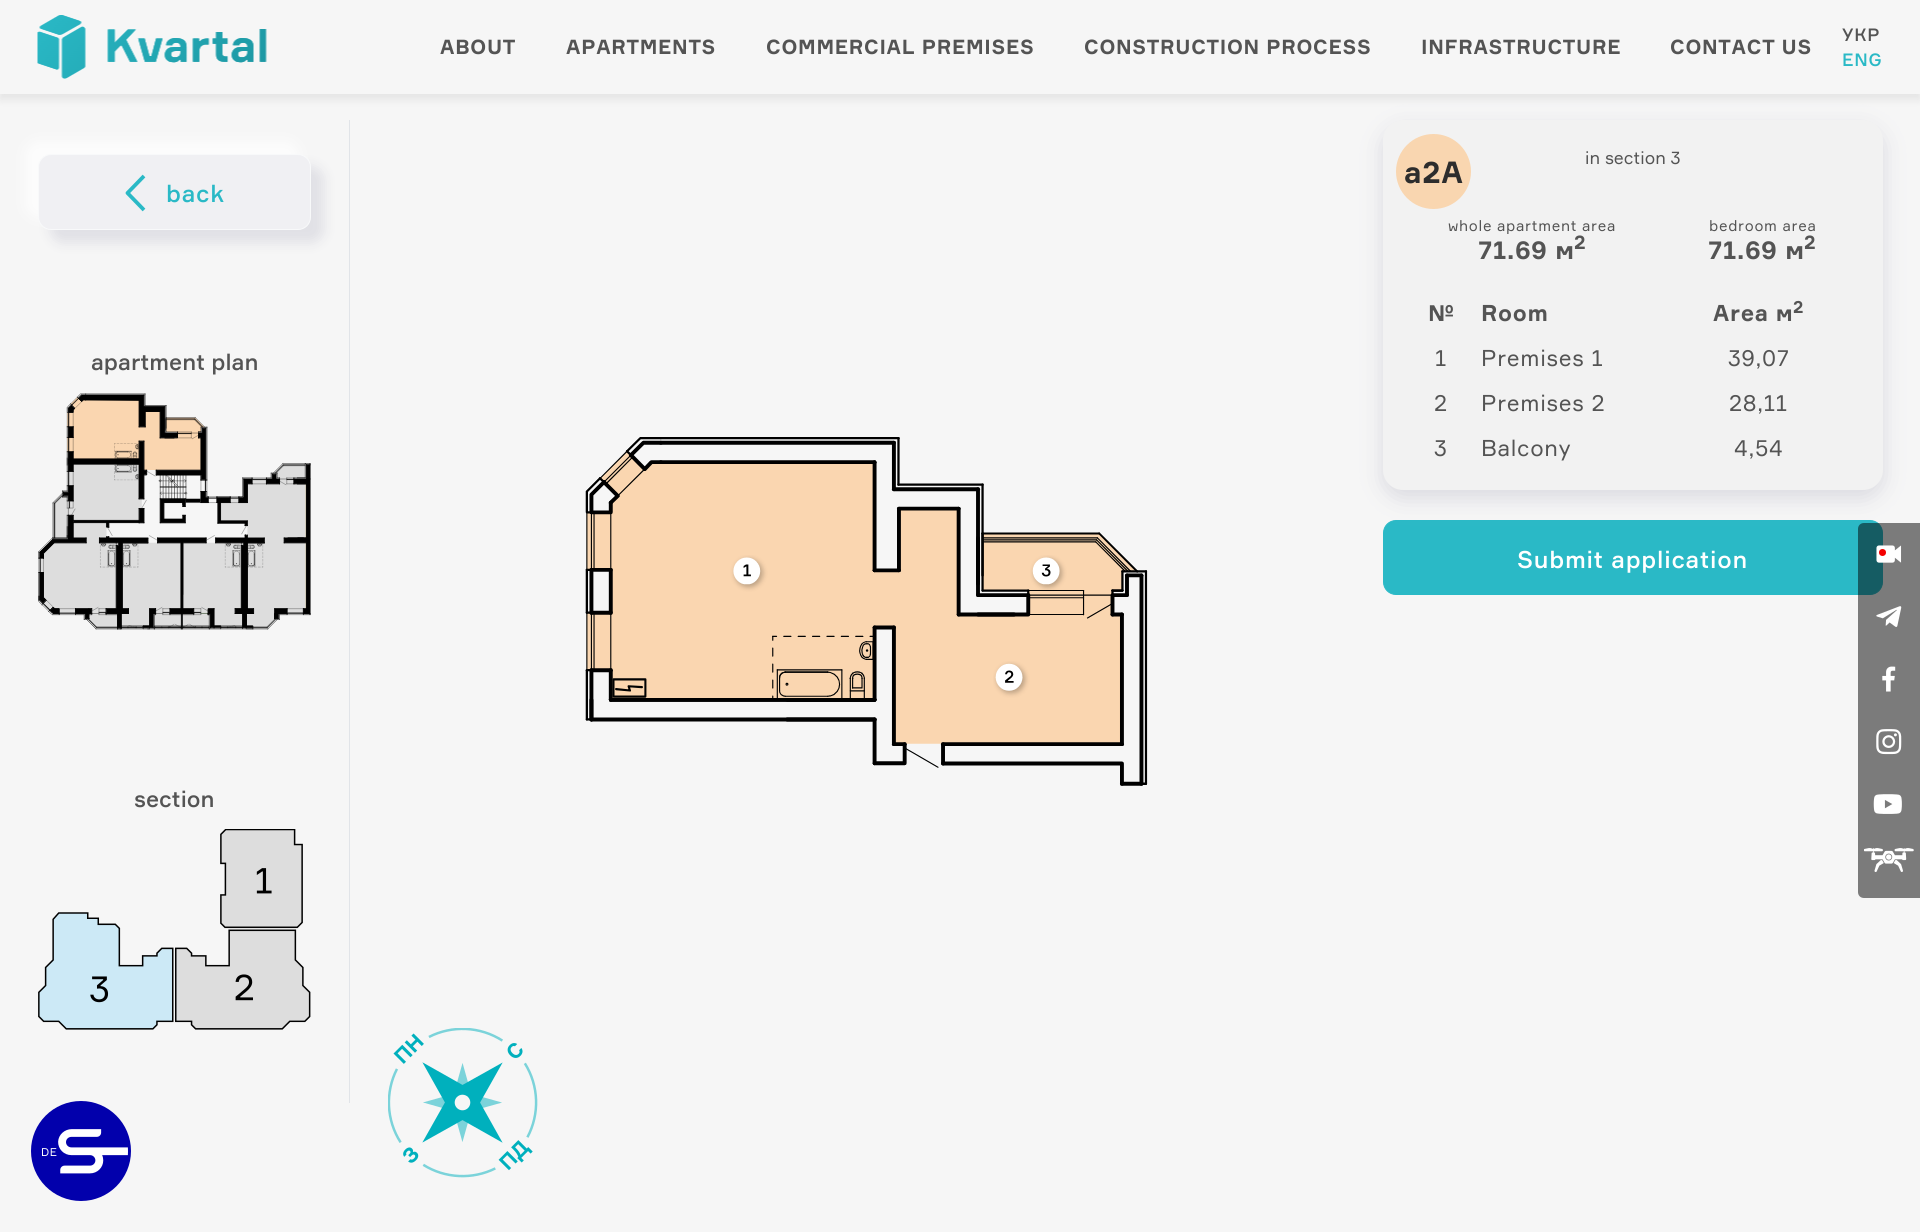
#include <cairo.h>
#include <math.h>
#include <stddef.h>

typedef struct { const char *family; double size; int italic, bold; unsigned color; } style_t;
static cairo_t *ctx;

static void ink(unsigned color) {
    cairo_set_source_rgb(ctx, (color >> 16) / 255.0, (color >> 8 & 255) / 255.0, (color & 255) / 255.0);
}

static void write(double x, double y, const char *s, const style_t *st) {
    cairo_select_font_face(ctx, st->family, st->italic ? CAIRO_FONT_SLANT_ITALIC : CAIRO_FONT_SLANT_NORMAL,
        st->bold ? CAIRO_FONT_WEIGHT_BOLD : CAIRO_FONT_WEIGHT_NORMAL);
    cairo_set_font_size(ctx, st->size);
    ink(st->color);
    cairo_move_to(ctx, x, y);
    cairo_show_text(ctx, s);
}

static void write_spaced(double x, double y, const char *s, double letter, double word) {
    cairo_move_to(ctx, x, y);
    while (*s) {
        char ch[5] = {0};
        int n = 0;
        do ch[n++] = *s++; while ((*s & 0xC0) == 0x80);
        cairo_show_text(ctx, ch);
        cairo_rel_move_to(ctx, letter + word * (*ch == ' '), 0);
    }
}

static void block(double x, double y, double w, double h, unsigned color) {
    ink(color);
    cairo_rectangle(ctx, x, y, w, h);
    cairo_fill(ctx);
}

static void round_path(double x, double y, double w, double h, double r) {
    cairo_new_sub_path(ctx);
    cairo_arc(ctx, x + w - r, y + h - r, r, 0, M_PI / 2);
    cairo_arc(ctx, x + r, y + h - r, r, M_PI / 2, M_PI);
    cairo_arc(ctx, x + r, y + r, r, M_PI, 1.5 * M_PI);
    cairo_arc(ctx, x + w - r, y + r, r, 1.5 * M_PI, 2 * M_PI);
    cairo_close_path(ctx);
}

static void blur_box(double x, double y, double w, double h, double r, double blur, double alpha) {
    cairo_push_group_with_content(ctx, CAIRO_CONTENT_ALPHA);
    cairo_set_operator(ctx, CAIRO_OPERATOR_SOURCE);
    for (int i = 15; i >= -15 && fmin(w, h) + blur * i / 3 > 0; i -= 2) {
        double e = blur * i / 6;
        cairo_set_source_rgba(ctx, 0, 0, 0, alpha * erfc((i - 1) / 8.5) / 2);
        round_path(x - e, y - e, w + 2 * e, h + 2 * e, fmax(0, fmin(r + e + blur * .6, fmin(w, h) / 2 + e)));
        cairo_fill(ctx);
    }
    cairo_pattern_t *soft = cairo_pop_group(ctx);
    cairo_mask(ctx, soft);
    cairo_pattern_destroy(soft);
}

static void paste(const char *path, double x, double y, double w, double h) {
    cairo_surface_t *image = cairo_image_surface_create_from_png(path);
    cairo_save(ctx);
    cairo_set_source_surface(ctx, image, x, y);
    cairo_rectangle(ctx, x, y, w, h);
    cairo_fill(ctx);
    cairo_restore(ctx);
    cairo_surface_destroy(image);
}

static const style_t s1 = {"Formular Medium", 22.5, 0, 0, 0x545454};
static const style_t s2 = {"Formular", 17.5, 0, 0, 0x545454};

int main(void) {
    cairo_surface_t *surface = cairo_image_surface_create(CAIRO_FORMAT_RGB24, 1920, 1232);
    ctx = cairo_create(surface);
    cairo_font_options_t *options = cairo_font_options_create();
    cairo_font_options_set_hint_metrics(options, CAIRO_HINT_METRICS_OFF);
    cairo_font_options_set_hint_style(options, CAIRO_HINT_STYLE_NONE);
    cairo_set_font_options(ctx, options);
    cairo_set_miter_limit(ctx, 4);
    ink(0xf6f6f6);
    cairo_paint(ctx);
    ink(0x000000);
    blur_box(0, 5, 1920, 94, 0, 5, 0.08);
    block(0, 0, 1920, 94, 0xf6f6f6);
    paste("pic1.png", 37, 15, 230, 64);
    cairo_select_font_face(ctx, "Formular", CAIRO_FONT_SLANT_NORMAL, CAIRO_FONT_WEIGHT_BOLD);
    cairo_set_font_size(ctx, 20);
    ink(0x545454);
    write_spaced(440, 54, "ABOUT", 0.7, 0);
    write_spaced(566, 54, "APARTMENTS", 0.7, 0);
    write_spaced(766, 54, "COMMERCIAL PREMISES", 0.7, 0);
    write_spaced(1084, 54, "CONSTRUCTION PROCESS", 0.7, 0);
    write_spaced(1421, 54, "INFRASTRUCTURE", 0.7, 0);
    write_spaced(1670, 54, "CONTACT US", 0.7, 0);
    cairo_select_font_face(ctx, "Formular Medium", CAIRO_FONT_SLANT_NORMAL, CAIRO_FONT_WEIGHT_NORMAL);
    cairo_set_font_size(ctx, 17.5);
    write_spaced(1842, 41, "УКР", 0.7, 0);
    ink(0x2ab9c6);
    write_spaced(1842, 66, "ENG", 0.7, 0);
    block(349, 120, 1, 983, 0xe1e4e8);
    ink(0xaeaec0);
    blur_box(50, 166, 274, 77, 13, 6, 0.3);
    ink(0xffffff);
    blur_box(25, 141, 274, 77, 13, 6, 0.7);
    ink(0xf0f0f3);
    round_path(38.5, 154.5, 272, 75, 12.5);
    cairo_fill_preserve(ctx);
    ink(0xf8f9fa);
    cairo_set_line_width(ctx, 1);
    cairo_stroke(ctx);
    cairo_new_path(ctx);
    cairo_move_to(ctx, 144, 176);
    cairo_line_to(ctx, 127.5, 193);
    cairo_line_to(ctx, 144, 210);
    ink(0x2ab9c6);
    cairo_set_line_width(ctx, 3.8);
    cairo_set_line_join(ctx, CAIRO_LINE_JOIN_ROUND);
    cairo_stroke(ctx);
    cairo_set_font_size(ctx, 23.75);
    write_spaced(166, 202, "back", 0.75, 0);
    write(91, 370, "apartment plan", &s1);
    paste("pic2.png", 38, 393, 273, 237);
    write(134, 807, "section", &s1);
    paste("pic3.png", 38, 829, 273, 201);
    paste("pic4.png", 585, 437, 563, 349);
    paste("pic5.png", 388, 1028, 150, 150);
    ink(0x2ab9c6);
    round_path(1383.5, 520.5, 499, 74, 12.5);
    cairo_fill_preserve(ctx);
    cairo_set_line_width(ctx, 1);
    cairo_set_line_join(ctx, CAIRO_LINE_JOIN_MITER);
    cairo_stroke(ctx);
    ink(0xaeaec0);
    blur_box(1383, 128, 500, 370, 20, 11, 0.4);
    ink(0xf2f2f2);
    round_path(1383, 120, 500, 370, 20);
    cairo_fill(ctx);
    write(1585, 164, "in section 3", &s2);
    ink(0xf9d6b0);
    cairo_new_path(ctx);
    cairo_arc(ctx, 1433.5, 171.5, 37.5, 0, 2 * M_PI);
    cairo_fill(ctx);
    cairo_select_font_face(ctx, "Formular", CAIRO_FONT_SLANT_NORMAL, CAIRO_FONT_WEIGHT_BOLD);
    cairo_set_font_size(ctx, 30);
    ink(0x2d2d2d);
    write_spaced(1404, 183, "а2А", 0.7, 0);
    cairo_select_font_face(ctx, "Formular", CAIRO_FONT_SLANT_NORMAL, CAIRO_FONT_WEIGHT_NORMAL);
    cairo_set_font_size(ctx, 15);
    ink(0x545454);
    write_spaced(1448, 231, "whole apartment area", 0.7, 0);
    cairo_select_font_face(ctx, "Formular", CAIRO_FONT_SLANT_NORMAL, CAIRO_FONT_WEIGHT_BOLD);
    cairo_set_font_size(ctx, 25);
    write_spaced(1478, 259, "71.69 м", 0.7, 0);
    cairo_set_font_size(ctx, 19);
    write_spaced(1574, 249, "2", 0.7, 0);
    cairo_select_font_face(ctx, "Formular", CAIRO_FONT_SLANT_NORMAL, CAIRO_FONT_WEIGHT_NORMAL);
    cairo_set_font_size(ctx, 15);
    write_spaced(1709, 231, "bedroom area", 0.7, 0);
    cairo_select_font_face(ctx, "Formular", CAIRO_FONT_SLANT_NORMAL, CAIRO_FONT_WEIGHT_BOLD);
    cairo_set_font_size(ctx, 25);
    write_spaced(1708, 259, "71.69 м", 0.7, 0);
    cairo_set_font_size(ctx, 19);
    write_spaced(1804, 249, "2", 0.7, 0);
    cairo_set_font_size(ctx, 22.5);
    write_spaced(1428, 321, "№", 0.7, 0);
    write_spaced(1481, 321, "Room", 0.7, 0);
    write_spaced(1713, 321, "Area м", 0.7, 0);
    cairo_set_font_size(ctx, 17);
    write_spaced(1793, 313, "2", 0.7, 0);
    cairo_select_font_face(ctx, "Formular", CAIRO_FONT_SLANT_NORMAL, CAIRO_FONT_WEIGHT_NORMAL);
    cairo_set_font_size(ctx, 22.5);
    write_spaced(1435, 366, "1", 0.7, 0);
    write_spaced(1481, 366, "Premises 1", 0.7, 0);
    write_spaced(1728, 366, "39,07", 0.7, 0);
    write_spaced(1434, 411, "2", 0.7, 0);
    write_spaced(1481, 411, "Premises 2", 0.7, 0);
    write_spaced(1729, 411, "28,11", 0.7, 0);
    write_spaced(1434, 456, "3", 0.7, 0);
    write_spaced(1481, 456, "Balcony", 0.7, 0);
    write_spaced(1734, 456, "4,54", 0.7, 0);
    cairo_select_font_face(ctx, "Formular Medium", CAIRO_FONT_SLANT_NORMAL, CAIRO_FONT_WEIGHT_NORMAL);
    cairo_set_font_size(ctx, 23.75);
    ink(0xffffff);
    write_spaced(1517, 568, "Submit application", 0.75, 0);
    cairo_set_source_rgba(ctx, 0, 0, 0, 0.5);
    cairo_new_path(ctx);
    cairo_move_to(ctx, 1864, 523);
    cairo_line_to(ctx, 1920, 523);
    cairo_line_to(ctx, 1920, 898);
    cairo_line_to(ctx, 1864, 898);
    cairo_curve_to(ctx, 1860.5, 898, 1858, 895.5, 1858, 892);
    cairo_line_to(ctx, 1858, 529);
    cairo_curve_to(ctx, 1858, 525.5, 1860.5, 523, 1864, 523);
    cairo_close_path(ctx);
    cairo_fill(ctx);
    paste("pic6.png", 1876, 545, 26, 18);
    ink(0xf40000);
    cairo_arc(ctx, 1882.5, 552.5, 3.5, 0, 2 * M_PI);
    cairo_fill(ctx);
    paste("pic7.png", 1876, 606, 26, 21);
    paste("pic8.png", 1882, 666, 14, 26);
    paste("pic9.png", 1876, 729, 26, 26);
    paste("pic10.png", 1873, 794, 29, 20);
    paste("pic11.png", 1864, 848, 50, 24);
    ink(0x0200ac);
    cairo_arc(ctx, 81, 1151, 50, 0, 2 * M_PI);
    cairo_fill(ctx);
    cairo_select_font_face(ctx, "Formular", CAIRO_FONT_SLANT_NORMAL, CAIRO_FONT_WEIGHT_NORMAL);
    cairo_set_font_size(ctx, 11);
    ink(0xffffff);
    write_spaced(41, 1156, "DE", 0.7, 0);
    paste("pic12.png", 58, 1129, 70, 45);
    cairo_surface_write_to_png(surface, "screenshot.png");
    cairo_font_options_destroy(options);
    cairo_destroy(ctx);
    cairo_surface_destroy(surface);
    return 0;
}
